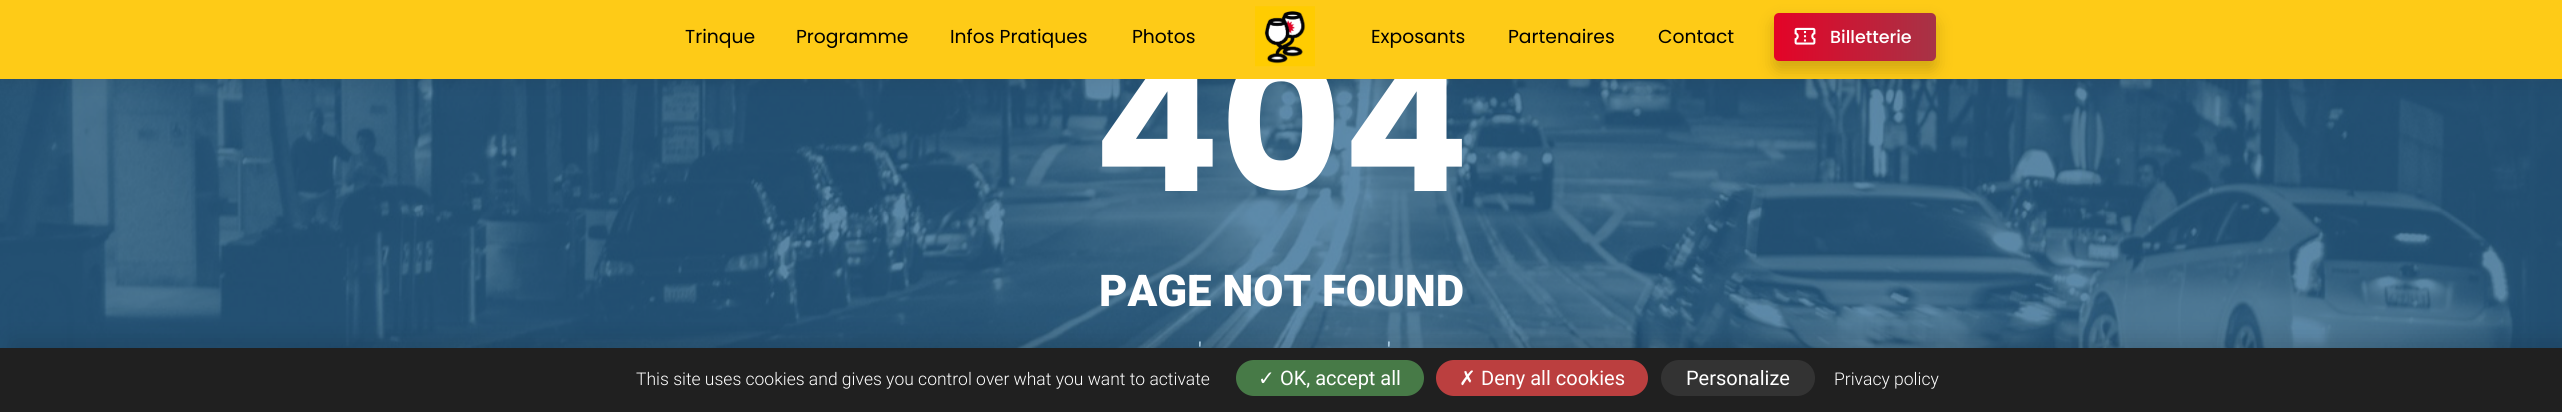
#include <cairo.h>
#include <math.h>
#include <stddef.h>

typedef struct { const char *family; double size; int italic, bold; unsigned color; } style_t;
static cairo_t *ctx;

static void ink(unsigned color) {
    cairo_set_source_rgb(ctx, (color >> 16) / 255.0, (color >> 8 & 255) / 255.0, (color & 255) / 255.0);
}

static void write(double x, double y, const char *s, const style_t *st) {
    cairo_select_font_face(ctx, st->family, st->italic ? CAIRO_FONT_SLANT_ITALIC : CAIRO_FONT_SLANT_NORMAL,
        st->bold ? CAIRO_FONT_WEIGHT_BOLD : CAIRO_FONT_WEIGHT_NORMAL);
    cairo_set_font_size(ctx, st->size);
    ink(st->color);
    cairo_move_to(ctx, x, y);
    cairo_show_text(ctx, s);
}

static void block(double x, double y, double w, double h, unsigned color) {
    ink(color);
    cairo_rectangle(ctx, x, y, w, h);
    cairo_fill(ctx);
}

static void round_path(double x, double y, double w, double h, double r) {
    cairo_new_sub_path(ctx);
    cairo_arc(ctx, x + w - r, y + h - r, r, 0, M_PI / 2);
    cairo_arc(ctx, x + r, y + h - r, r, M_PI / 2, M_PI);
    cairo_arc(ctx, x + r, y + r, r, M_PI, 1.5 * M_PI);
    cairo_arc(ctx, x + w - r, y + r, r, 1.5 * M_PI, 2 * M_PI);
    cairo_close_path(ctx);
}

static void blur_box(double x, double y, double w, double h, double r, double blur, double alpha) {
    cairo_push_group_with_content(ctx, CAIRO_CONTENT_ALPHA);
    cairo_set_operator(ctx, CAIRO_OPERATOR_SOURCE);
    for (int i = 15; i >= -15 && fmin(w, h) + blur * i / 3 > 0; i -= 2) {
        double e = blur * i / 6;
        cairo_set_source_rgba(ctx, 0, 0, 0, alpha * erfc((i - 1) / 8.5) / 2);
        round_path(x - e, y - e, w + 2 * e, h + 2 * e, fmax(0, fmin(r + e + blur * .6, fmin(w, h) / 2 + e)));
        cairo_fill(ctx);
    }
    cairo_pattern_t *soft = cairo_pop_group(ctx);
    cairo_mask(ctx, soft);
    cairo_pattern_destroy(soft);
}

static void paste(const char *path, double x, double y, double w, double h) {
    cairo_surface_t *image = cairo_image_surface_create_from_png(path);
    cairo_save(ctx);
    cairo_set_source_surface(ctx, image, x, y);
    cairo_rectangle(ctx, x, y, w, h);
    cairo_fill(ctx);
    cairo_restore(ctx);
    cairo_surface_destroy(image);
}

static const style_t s1 = {"Poppins", 187.5, 0, 1, 0xffffff};
static const style_t s2 = {"Poppins", 18.75, 0, 0, 0x000000};
static const style_t s3 = {"Poppins Medium", 17.5, 0, 0, 0xffffff};
static const style_t s4 = {"Roboto Black", 43.75, 0, 0, 0xffffff};
static const style_t s5 = {"Roboto", 22, 0, 0, 0xc3e7ff};
static const style_t s6 = {"Roboto Light", 17.5, 0, 0, 0xffffff};
static const style_t s7 = {"DejaVu Sans", 20, 0, 0, 0xffffff};
static const style_t s8 = {"Roboto", 20, 0, 0, 0xffffff};

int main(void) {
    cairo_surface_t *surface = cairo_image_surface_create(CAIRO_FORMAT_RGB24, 2562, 412);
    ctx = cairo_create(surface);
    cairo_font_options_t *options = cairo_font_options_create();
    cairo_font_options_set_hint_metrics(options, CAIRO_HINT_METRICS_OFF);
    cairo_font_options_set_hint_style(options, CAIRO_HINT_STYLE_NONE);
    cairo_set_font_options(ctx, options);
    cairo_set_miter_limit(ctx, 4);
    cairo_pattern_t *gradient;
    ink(0x23618e);
    cairo_paint(ctx);
    paste("pic3.png", 0, 79, 2562, 269);
    ink(0x000000);
    blur_box(0, 6, 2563, 79, 0, 9.5, 0.06);
    write(1093, 191, "404", &s1);
    block(0, 0, 2562, 79, 0xfecb17);
    write(685, 43, "Trinque", &s2);
    write(796, 43, "Programme", &s2);
    write(950, 43, "Infos Pratiques", &s2);
    write(1132, 43, "Photos", &s2);
    paste("pic1.png", 1255, 6, 60, 61);
    write(1371, 43, "Exposants", &s2);
    write(1508, 43, "Partenaires", &s2);
    write(1658, 43, "Contact", &s2);
    ink(0x000000);
    blur_box(1774, 21, 162, 49, 5, 8, 0.18);
    gradient = cairo_pattern_create_linear(1774, 37, 1936, 37);
    cairo_pattern_add_color_stop_rgba(gradient, 0, 0.894, 0.012, 0.153, 1);
    cairo_pattern_add_color_stop_rgba(gradient, 1, 0.655, 0.2, 0.275, 1);
    cairo_set_source(ctx, gradient);
    cairo_pattern_destroy(gradient);
    round_path(1774, 13, 162, 48, 5);
    cairo_fill(ctx);
    paste("pic2.png", 1794, 27, 22, 18);
    write(1830, 43, "Billetterie", &s3);
    write(1099, 306, "PAGE NOT FOUND", &s4);
    write(1198, 358, "'", &s5);
    write(1387, 358, "'", &s5);
    ink(0x000000);
    blur_box(13, 340, 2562, 65, 0, 12.5, 0.12);
    block(0, 348, 2562, 64, 0x202020);
    write(636, 385, "This site uses cookies and gives you control over what you want to activate", &s6);
    ink(0x477a47);
    round_path(1236, 360, 188, 36, 18);
    cairo_fill(ctx);
    write(1258, 385, "✓", &s7);
    write(1280, 385, "OK, accept all", &s8);
    ink(0xbb3f3f);
    round_path(1436, 360, 212, 36, 18);
    cairo_fill(ctx);
    write(1459, 385, "✗", &s7);
    write(1481, 385, "Deny all cookies", &s8);
    ink(0x333333);
    round_path(1661, 360, 154, 36, 18);
    cairo_fill(ctx);
    write(1686, 385, "Personalize", &s8);
    write(1834, 385, "Privacy policy", &s6);
    cairo_surface_write_to_png(surface, "screenshot.png");
    cairo_font_options_destroy(options);
    cairo_destroy(ctx);
    cairo_surface_destroy(surface);
    return 0;
}
